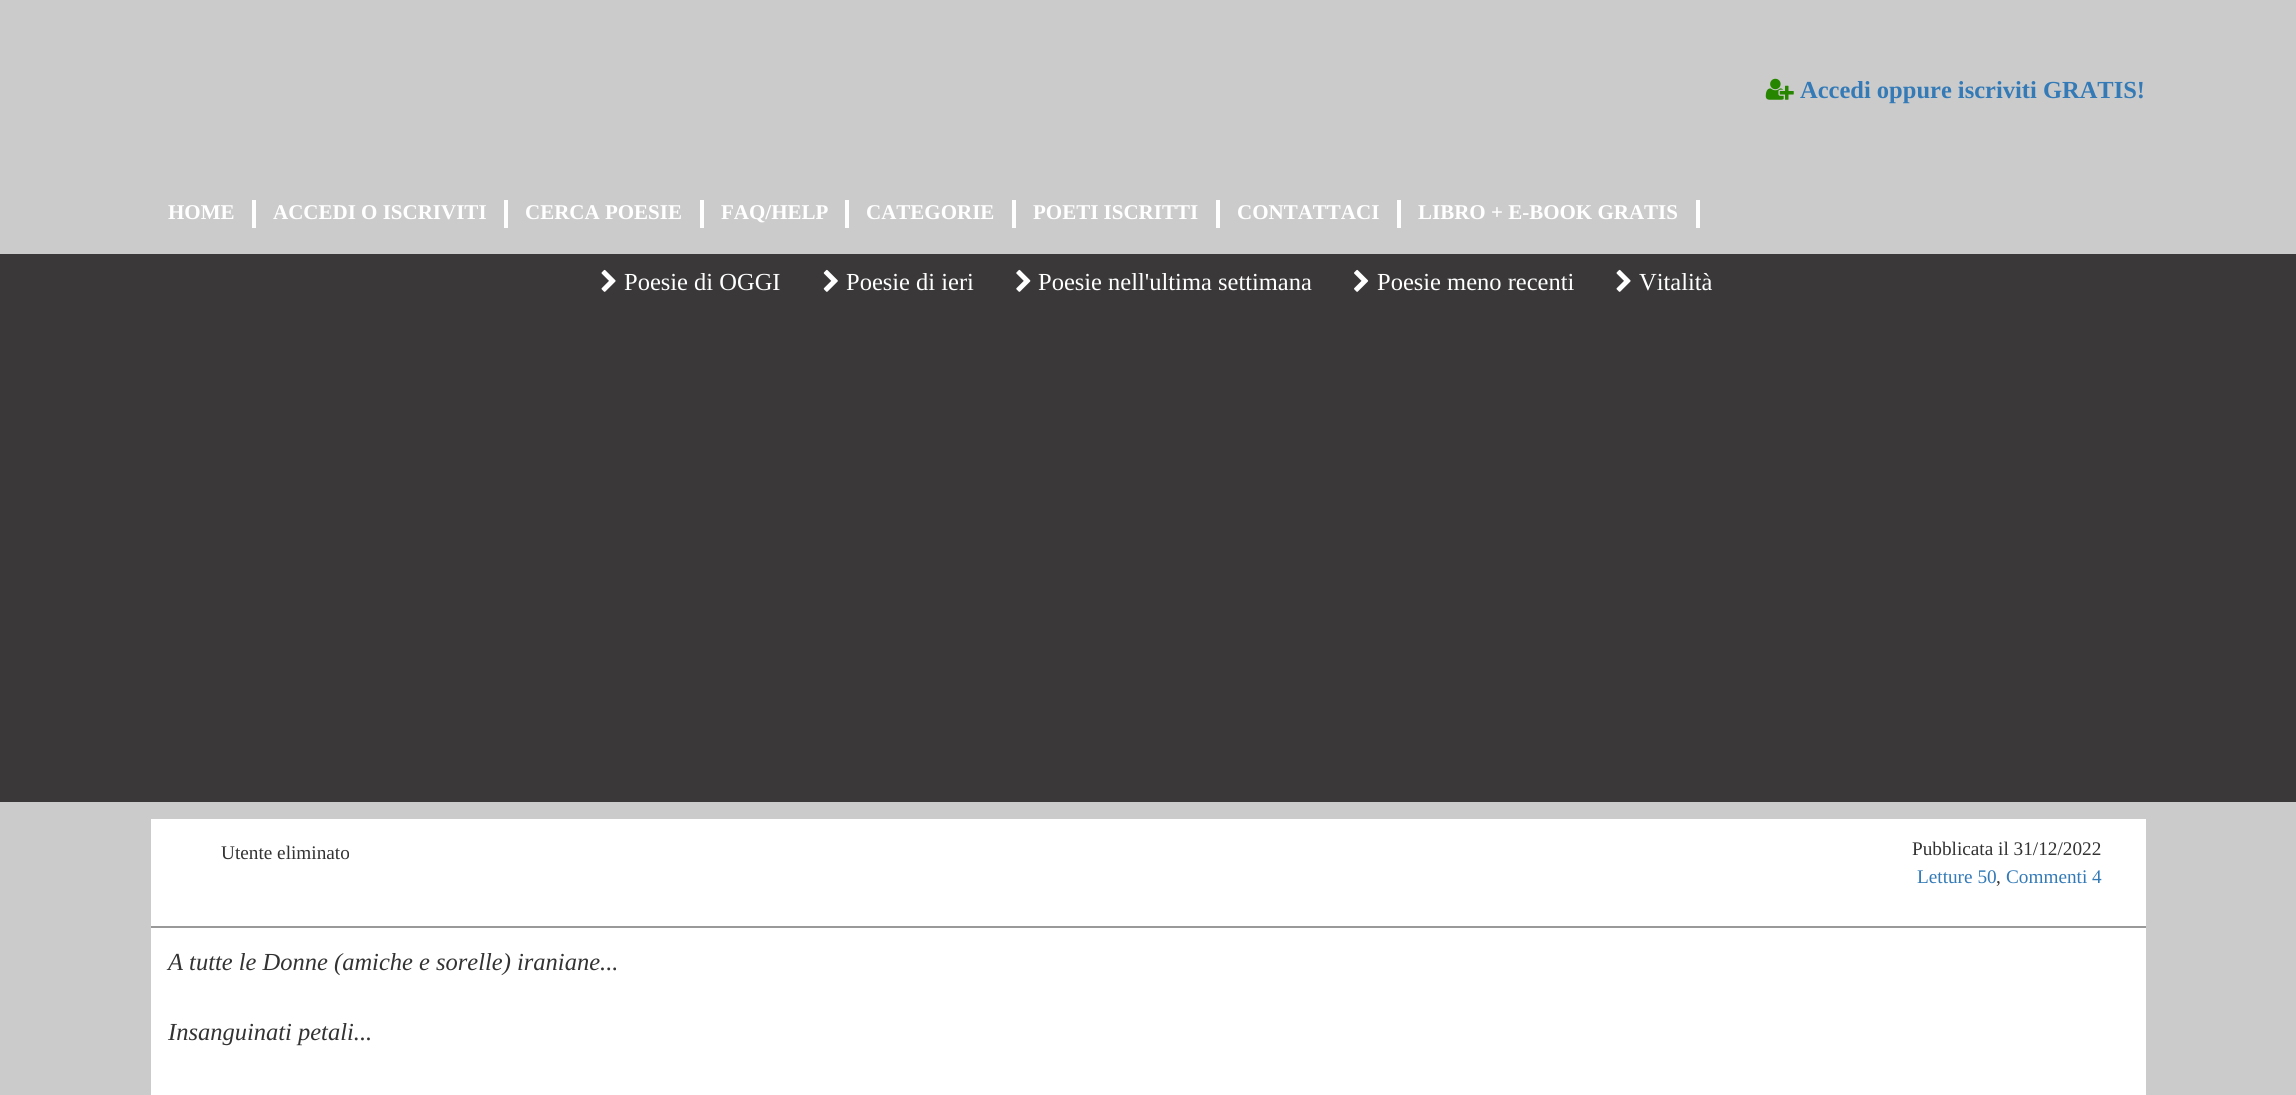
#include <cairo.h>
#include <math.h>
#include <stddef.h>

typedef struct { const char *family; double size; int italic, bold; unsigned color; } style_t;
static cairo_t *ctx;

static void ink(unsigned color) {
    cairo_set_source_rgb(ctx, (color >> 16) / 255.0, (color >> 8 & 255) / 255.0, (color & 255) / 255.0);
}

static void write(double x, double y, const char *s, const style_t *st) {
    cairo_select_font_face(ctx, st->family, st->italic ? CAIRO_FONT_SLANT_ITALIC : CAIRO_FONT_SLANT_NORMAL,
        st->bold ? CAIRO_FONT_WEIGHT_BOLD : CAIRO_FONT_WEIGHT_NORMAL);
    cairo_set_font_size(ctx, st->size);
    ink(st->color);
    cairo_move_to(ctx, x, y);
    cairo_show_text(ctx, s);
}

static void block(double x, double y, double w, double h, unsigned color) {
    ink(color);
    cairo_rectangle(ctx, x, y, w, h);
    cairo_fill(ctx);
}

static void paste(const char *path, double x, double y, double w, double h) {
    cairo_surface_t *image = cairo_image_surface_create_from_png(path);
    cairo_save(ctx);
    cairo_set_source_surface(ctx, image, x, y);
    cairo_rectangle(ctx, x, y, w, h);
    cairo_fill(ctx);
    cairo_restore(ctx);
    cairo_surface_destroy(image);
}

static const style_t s1 = {"Liberation Serif", 24.5, 0, 1, 0x337ab7};
static const style_t s2 = {"Liberation Serif", 21, 0, 1, 0xffffff};
static const style_t s3 = {"Liberation Serif", 24.5, 0, 0, 0xffffff};
static const style_t s4 = {"Liberation Serif", 19.25, 0, 0, 0x333333};
static const style_t s5 = {"Liberation Serif", 19.25, 0, 0, 0x337ab7};
static const style_t s6 = {"Liberation Serif", 24.5, 1, 0, 0x333333};

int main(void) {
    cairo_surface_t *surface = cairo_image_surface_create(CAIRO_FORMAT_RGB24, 2296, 1095);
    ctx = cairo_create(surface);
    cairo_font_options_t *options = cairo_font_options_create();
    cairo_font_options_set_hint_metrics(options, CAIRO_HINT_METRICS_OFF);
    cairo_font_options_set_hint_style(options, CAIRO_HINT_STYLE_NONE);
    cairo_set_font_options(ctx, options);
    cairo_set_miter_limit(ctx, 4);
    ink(0xcbcbcb);
    cairo_paint(ctx);
    paste("pic1.png", 1765, 78, 29, 22);
    write(1800, 98, "Accedi oppure iscriviti GRATIS!", &s1);
    block(252, 200, 4, 28, 0xffffff);
    write(168, 219, "HOME", &s2);
    block(504, 200, 4, 28, 0xffffff);
    write(273, 219, "ACCEDI O ISCRIVITI", &s2);
    block(700, 200, 4, 28, 0xffffff);
    write(525, 219, "CERCA POESIE", &s2);
    block(845, 200, 4, 28, 0xffffff);
    write(721, 219, "FAQ/HELP", &s2);
    block(1012, 200, 4, 28, 0xffffff);
    write(866, 219, "CATEGORIE", &s2);
    block(1216, 200, 4, 28, 0xffffff);
    write(1033, 219, "POETI ISCRITTI", &s2);
    block(1397, 200, 4, 28, 0xffffff);
    write(1237, 219, "CONTATTACI", &s2);
    block(1696, 200, 4, 28, 0xffffff);
    write(1418, 219, "LIBRO + E-BOOK GRATIS", &s2);
    block(0, 254, 2296, 548, 0x3a3838);
    paste("pic2.png", 601, 269, 15, 23);
    write(624, 290, "Poesie di OGGI", &s3);
    paste("pic3.png", 823, 269, 15, 23);
    write(846, 290, "Poesie di ieri", &s3);
    paste("pic4.png", 1016, 269, 15, 23);
    write(1038, 290, "Poesie nell'ultima settimana", &s3);
    paste("pic5.png", 1354, 269, 15, 23);
    write(1377, 290, "Poesie meno recenti", &s3);
    paste("pic2.png", 1616, 269, 15, 23);
    write(1639, 290, "Vitalità", &s3);
    block(151, 819, 1995, 276, 0xffffff);
    write(221, 859, "Utente eliminato", &s4);
    write(1912, 855, "Pubblicata il 31/12/2022", &s4);
    write(1917, 883, "Letture 50", &s5);
    write(1996, 883, ",", &s4);
    write(2006, 883, "Commenti 4", &s5);
    block(151, 926, 1995, 2, 0x999999);
    write(168, 970, "A tutte le Donne (amiche e sorelle) iraniane...", &s6);
    write(168, 1040, "Insanguinati petali...", &s6);
    cairo_surface_write_to_png(surface, "screenshot.png");
    cairo_font_options_destroy(options);
    cairo_destroy(ctx);
    cairo_surface_destroy(surface);
    return 0;
}
